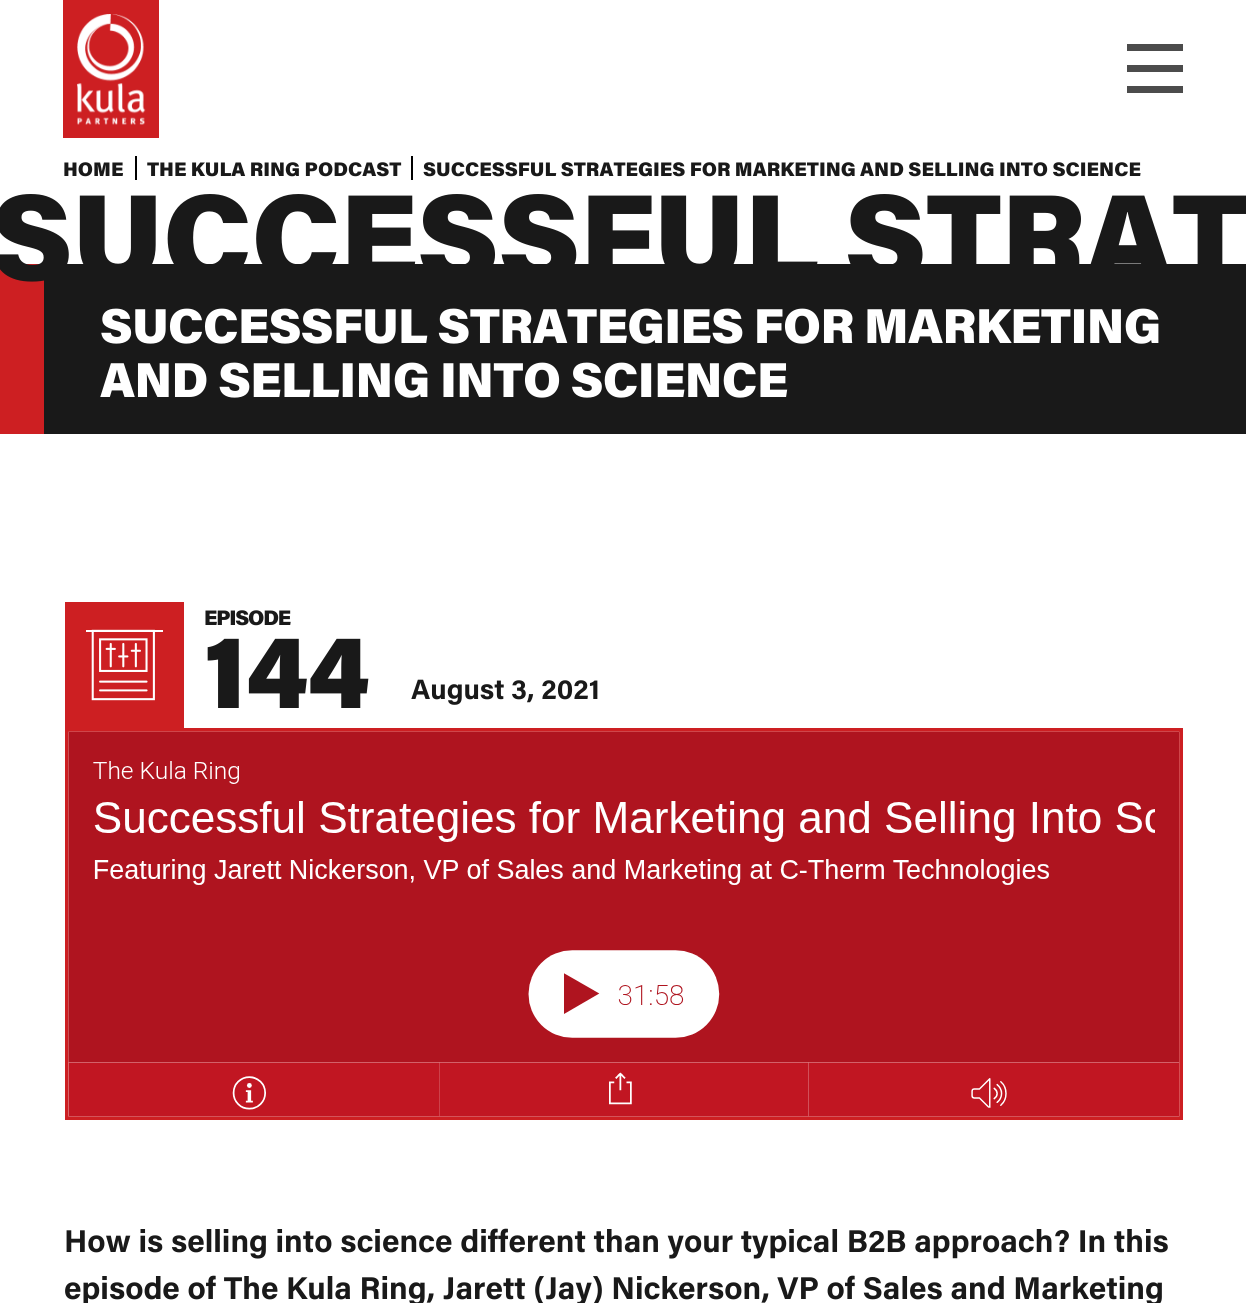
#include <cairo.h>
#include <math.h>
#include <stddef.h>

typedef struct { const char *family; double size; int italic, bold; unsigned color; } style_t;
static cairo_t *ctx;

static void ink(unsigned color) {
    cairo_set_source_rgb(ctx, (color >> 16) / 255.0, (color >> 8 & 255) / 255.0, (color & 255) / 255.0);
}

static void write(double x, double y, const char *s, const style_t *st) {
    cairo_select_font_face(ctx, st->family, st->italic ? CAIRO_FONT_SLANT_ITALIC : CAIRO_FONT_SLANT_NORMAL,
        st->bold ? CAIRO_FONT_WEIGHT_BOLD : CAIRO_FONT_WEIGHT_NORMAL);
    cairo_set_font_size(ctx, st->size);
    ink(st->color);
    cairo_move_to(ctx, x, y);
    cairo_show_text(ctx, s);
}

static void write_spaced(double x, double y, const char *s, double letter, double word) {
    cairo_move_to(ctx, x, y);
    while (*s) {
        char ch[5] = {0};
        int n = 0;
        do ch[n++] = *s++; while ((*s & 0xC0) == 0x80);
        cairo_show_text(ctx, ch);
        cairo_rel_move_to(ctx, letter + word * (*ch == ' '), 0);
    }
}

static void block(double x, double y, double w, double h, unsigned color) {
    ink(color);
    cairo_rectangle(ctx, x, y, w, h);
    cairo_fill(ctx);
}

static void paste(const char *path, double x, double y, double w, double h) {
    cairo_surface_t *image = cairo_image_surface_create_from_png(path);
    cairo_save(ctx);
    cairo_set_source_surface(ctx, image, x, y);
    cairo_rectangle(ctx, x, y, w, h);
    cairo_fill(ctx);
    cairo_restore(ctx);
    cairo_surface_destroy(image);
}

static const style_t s1 = {"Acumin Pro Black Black", 19.6, 0, 0, 0x191919};
static const style_t s2 = {"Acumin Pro", 28, 0, 1, 0x191919};
static const style_t s3 = {"Acumin Pro", 31.5, 0, 1, 0x191919};

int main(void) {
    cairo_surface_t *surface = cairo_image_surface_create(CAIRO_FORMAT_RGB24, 1246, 1303);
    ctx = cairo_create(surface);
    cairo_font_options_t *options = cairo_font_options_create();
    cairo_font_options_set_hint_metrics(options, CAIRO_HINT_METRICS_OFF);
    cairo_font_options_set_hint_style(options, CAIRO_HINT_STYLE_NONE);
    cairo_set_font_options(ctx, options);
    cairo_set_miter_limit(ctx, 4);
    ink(0xffffff);
    cairo_paint(ctx);
    block(63, 0, 96, 138, 0xcd1f22);
    paste("pic1.png", 77, 14, 69, 111);
    block(1127, 44, 56, 7, 0x4c4c4c);
    block(1127, 65, 56, 7, 0x4c4c4c);
    block(1127, 86, 56, 7, 0x4c4c4c);
    block(135, 156, 2, 24, 0x000000);
    write(63, 176, "HOME", &s1);
    block(411, 156, 2, 24, 0x000000);
    write(147, 176, "THE KULA RING PODCAST", &s1);
    write(423, 176, "SUCCESSFUL STRATEGIES FOR MARKETING AND SELLING INTO SCIENCE", &s1);
    block(44, 264, 1202, 170, 0x191919);
    block(0, 264, 44, 170, 0xcd1f22);
    cairo_set_font_size(ctx, 122.5);
    ink(0x191919);
    write_spaced(-9, 280, "SUCCESSFUL STRAT", -0.6, 0);
    cairo_set_font_size(ctx, 49);
    ink(0xffffff);
    write_spaced(100, 343, "SUCCESSFUL STRATEGIES FOR MARKETING", -0.6, 0);
    write_spaced(100, 397, "AND SELLING INTO SCIENCE", -0.6, 0);
    block(65, 602, 119, 126, 0xcd1f22);
    paste("pic2.png", 86, 629, 77, 72);
    cairo_set_font_size(ctx, 21);
    ink(0x191919);
    write_spaced(204, 625, "EPISODE", -1.25, 0);
    cairo_set_font_size(ctx, 105);
    write_spaced(204, 708, "144", -1.25, 0);
    write(411, 699, "August 3, 2021", &s2);
    cairo_rectangle(ctx, 67, 730, 1114, 388);
    ink(0xcd1f22);
    cairo_set_line_width(ctx, 4);
    cairo_stroke(ctx);
    paste("pic3.png", 68, 731, 1112, 386);
    write(64, 1252, "How is selling into science different than your typical B2B approach? In this", &s3);
    write(64, 1299, "episode of The Kula Ring, Jarett (Jay) Nickerson, VP of Sales and Marketing", &s3);
    cairo_surface_write_to_png(surface, "screenshot.png");
    cairo_font_options_destroy(options);
    cairo_destroy(ctx);
    cairo_surface_destroy(surface);
    return 0;
}
